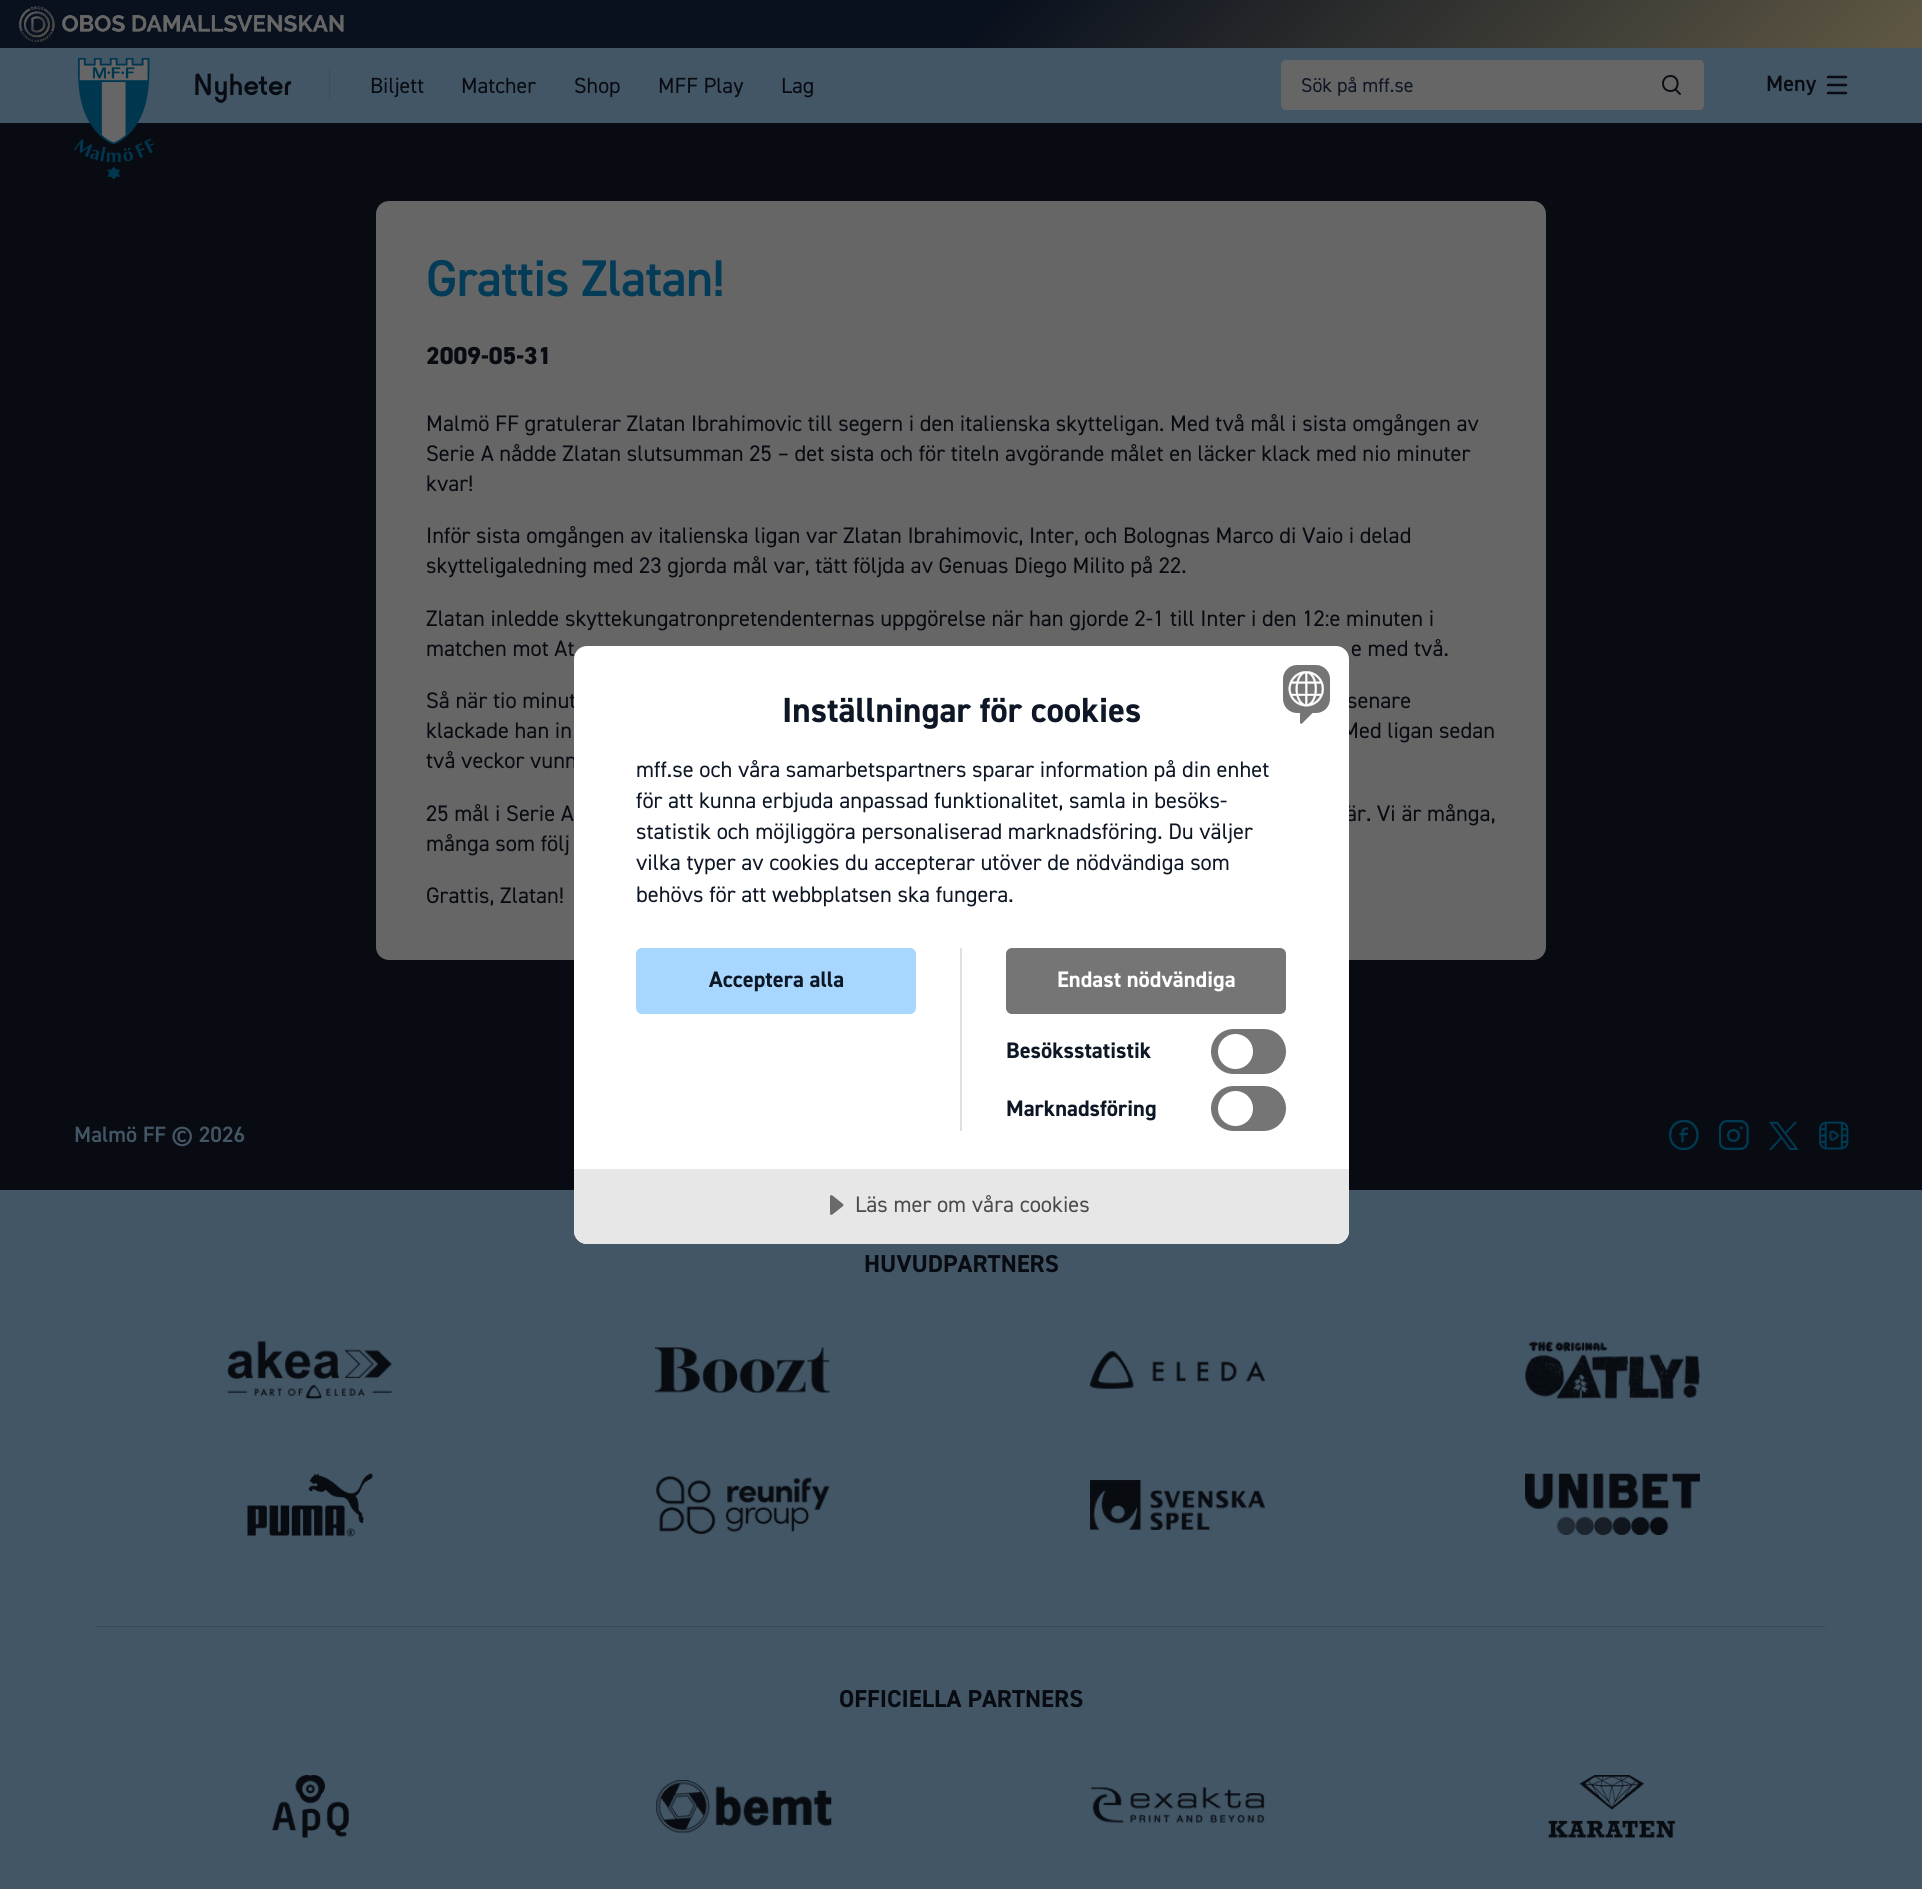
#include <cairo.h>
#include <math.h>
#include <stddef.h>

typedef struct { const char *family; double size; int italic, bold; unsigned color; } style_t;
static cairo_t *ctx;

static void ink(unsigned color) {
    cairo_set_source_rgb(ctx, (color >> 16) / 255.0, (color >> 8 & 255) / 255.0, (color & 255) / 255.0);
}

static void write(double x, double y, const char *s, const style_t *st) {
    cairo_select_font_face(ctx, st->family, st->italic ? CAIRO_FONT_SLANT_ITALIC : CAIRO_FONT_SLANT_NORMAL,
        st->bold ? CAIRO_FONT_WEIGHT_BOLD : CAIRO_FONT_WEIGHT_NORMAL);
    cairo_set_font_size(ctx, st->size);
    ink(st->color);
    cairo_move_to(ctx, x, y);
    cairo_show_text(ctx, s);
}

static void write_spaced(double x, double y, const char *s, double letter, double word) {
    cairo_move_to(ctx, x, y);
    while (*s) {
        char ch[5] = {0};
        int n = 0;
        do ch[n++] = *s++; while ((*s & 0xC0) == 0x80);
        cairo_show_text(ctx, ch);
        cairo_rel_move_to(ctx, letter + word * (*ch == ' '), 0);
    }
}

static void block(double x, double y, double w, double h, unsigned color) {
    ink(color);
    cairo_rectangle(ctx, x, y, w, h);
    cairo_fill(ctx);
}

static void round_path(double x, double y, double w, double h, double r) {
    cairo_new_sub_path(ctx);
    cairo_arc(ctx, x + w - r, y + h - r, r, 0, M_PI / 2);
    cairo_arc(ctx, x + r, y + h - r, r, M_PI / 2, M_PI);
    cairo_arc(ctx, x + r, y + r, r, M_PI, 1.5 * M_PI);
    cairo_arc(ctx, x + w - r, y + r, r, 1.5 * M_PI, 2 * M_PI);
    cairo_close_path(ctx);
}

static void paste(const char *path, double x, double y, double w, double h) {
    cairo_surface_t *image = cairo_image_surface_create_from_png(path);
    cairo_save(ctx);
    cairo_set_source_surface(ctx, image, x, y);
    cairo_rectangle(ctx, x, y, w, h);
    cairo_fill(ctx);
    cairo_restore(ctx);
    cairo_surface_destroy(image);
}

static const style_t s1 = {"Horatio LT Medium", 32, 0, 0, 0x080b11};
static const style_t s2 = {"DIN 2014", 22, 0, 0, 0x080b11};
static const style_t s3 = {"DIN 2014", 20, 0, 0, 0x0e1725};
static const style_t s4 = {"DIN 2014 SemiBold", 22.25, 0, 0, 0x080b11};
static const style_t s5 = {"DIN 2014 ExtraBold", 24.5, 0, 0, 0x080b11};
static const style_t s6 = {"DIN 2014", 22.5, 0, 0, 0x080b11};
static const style_t s7 = {"DIN 2014", 35, 0, 1, 0x0e1725};
static const style_t s8 = {"DIN 2014", 22.5, 0, 0, 0x0e1725};
static const style_t s9 = {"DIN 2014", 22.5, 0, 1, 0x0e1725};
static const style_t s10 = {"DIN 2014", 22.5, 0, 1, 0xffffff};
static const style_t s11 = {"DIN 2014", 22.5, 0, 0, 0x4b4b4b};
static const style_t s12 = {"DIN 2014 SemiBold", 22.25, 0, 0, 0x435666};
static const style_t s13 = {"DIN 2014", 24.5, 0, 1, 0x080b11};

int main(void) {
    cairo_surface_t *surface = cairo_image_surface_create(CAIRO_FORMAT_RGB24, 1922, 1889);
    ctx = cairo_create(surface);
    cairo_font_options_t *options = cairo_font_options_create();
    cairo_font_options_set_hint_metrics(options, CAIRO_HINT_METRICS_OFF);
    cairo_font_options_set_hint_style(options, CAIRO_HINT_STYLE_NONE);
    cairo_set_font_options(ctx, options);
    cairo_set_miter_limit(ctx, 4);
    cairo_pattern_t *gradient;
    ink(0x080b11);
    cairo_paint(ctx);
    gradient = cairo_pattern_create_linear(469, -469, 1454, 516);
    cairo_pattern_add_color_stop_rgba(gradient, 0, 0.039, 0.067, 0.118, 1);
    cairo_pattern_add_color_stop_rgba(gradient, 0.51, 0.039, 0.067, 0.118, 1);
    cairo_pattern_add_color_stop_rgba(gradient, 1, 0.373, 0.345, 0.267, 1);
    cairo_set_source(ctx, gradient);
    cairo_pattern_destroy(gradient);
    cairo_rectangle(ctx, 0, 0, 1922, 48);
    cairo_fill(ctx);
    paste("pic1.png", 18, 6, 326, 37);
    block(0, 48, 1922, 75, 0x435666);
    paste("pic2.png", 74, 58, 80, 121);
    write(193, 95, "Nyheter", &s1);
    block(329, 69, 1, 32, 0x3c4e5c);
    write(370, 93, "Biljett", &s2);
    write(461, 93, "Matcher", &s2);
    write(574, 93, "Shop", &s2);
    write(658, 93, "MFF Play", &s2);
    write(781, 93, "Lag", &s2);
    ink(0x666666);
    cairo_new_path(ctx);
    cairo_move_to(ctx, 1654, 60);
    cairo_line_to(ctx, 1699, 60);
    cairo_curve_to(ctx, 1702, 60, 1704, 62, 1704, 65);
    cairo_line_to(ctx, 1704, 105);
    cairo_curve_to(ctx, 1704, 108, 1702, 110, 1699, 110);
    cairo_line_to(ctx, 1654, 110);
    cairo_close_path(ctx);
    cairo_fill(ctx);
    cairo_new_path(ctx);
    cairo_move_to(ctx, 1286, 60);
    cairo_line_to(ctx, 1654, 60);
    cairo_line_to(ctx, 1654, 110);
    cairo_line_to(ctx, 1286, 110);
    cairo_curve_to(ctx, 1283, 110, 1281, 108, 1281, 105);
    cairo_line_to(ctx, 1281, 65);
    cairo_curve_to(ctx, 1281, 62, 1283, 60, 1286, 60);
    cairo_close_path(ctx);
    cairo_fill(ctx);
    write(1301, 92, "Sök på mff.se", &s3);
    cairo_new_path(ctx);
    cairo_move_to(ctx, 1675.5, 89.5);
    cairo_line_to(ctx, 1680, 94);
    cairo_move_to(ctx, 1670.5, 76);
    cairo_curve_to(ctx, 1680, 76, 1680, 91, 1670.5, 91);
    cairo_curve_to(ctx, 1660.5, 91, 1660.5, 76, 1670.5, 76);
    cairo_close_path(ctx);
    ink(0x080b11);
    cairo_set_line_width(ctx, 1.9);
    cairo_set_line_cap(ctx, CAIRO_LINE_CAP_ROUND);
    cairo_set_line_join(ctx, CAIRO_LINE_JOIN_ROUND);
    cairo_stroke(ctx);
    write(1766, 91, "Meny", &s4);
    cairo_new_path(ctx);
    cairo_move_to(ctx, 1828, 93);
    cairo_line_to(ctx, 1846, 93);
    cairo_move_to(ctx, 1828, 77);
    cairo_line_to(ctx, 1846, 77);
    cairo_move_to(ctx, 1828, 85);
    cairo_line_to(ctx, 1846, 85);
    cairo_set_line_width(ctx, 2.5);
    cairo_stroke(ctx);
    ink(0x666666);
    round_path(376, 201, 1170, 759, 13);
    cairo_fill(ctx);
    cairo_set_font_size(ctx, 51.75);
    ink(0x043b56);
    write_spaced(426, 296, "Grattis Zlatan!", -0.75, 0);
    write(426, 364, "2009-05-31", &s5);
    write(426, 431, "Malmö FF gratulerar Zlatan Ibrahimovic till segern i den italienska skytteligan. Med två mål i sista omgången av", &s6);
    write(426, 461, "Serie A nådde Zlatan slutsumman 25 – det sista och för titeln avgörande målet en läcker klack med nio minuter", &s6);
    write(426, 491, "kvar!", &s6);
    write(426, 543, "Inför sista omgången av italienska ligan var Zlatan Ibrahimovic, Inter, och Bolognas Marco di Vaio i delad", &s6);
    write(426, 573, "skytteligaledning med 23 gjorda mål var, tätt följda av Genuas Diego Milito på 22.", &s6);
    write(426, 626, "Zlatan inledde skyttekungatronpretendenternas uppgörelse när han gjorde 2-1 till Inter i den 12:e minuten i", &s6);
    write(426, 656, "matchen mot At", &s6);
    write(1351, 656, "e med två.", &s6);
    write(426, 708, "Så när tio minut", &s6);
    write(1347, 708, "senare", &s6);
    write(426, 738, "klackade han in", &s6);
    write(1342, 738, "Med ligan sedan", &s6);
    write(426, 768, "två veckor vunn", &s6);
    write(426, 821, "25 mål i Serie A", &s6);
    write(1346, 821, "är. Vi är många,", &s6);
    write(426, 851, "många som följ", &s6);
    write(426, 903, "Grattis, Zlatan!", &s6);
    block(0, 1190, 1922, 699, 0x435666);
    ink(0xffffff);
    round_path(574, 646, 775, 598, 13);
    cairo_fill(ctx);
    write(782, 722, "Inställningar för cookies", &s7);
    write(636, 777, "mff.se och våra samarbetspartners sparar information på din enhet", &s8);
    write(636, 808, "för att kunna erbjuda anpassad funktionalitet, samla in besöks-", &s8);
    write(636, 839, "statistik och möjliggöra personaliserad marknadsföring. Du väljer", &s8);
    write(636, 870, "vilka typer av cookies du accepterar utöver de nödvändiga som", &s8);
    write(636, 902, "behövs för att webbplatsen ska fungera.", &s8);
    block(960, 948, 2, 183, 0xe0e0e0);
    ink(0xa7d7ff);
    round_path(636, 948, 280, 66, 6);
    cairo_fill(ctx);
    write(709, 987, "Acceptera alla", &s9);
    ink(0x757575);
    round_path(1006, 948, 280, 66, 6);
    cairo_fill(ctx);
    write(1057, 987, "Endast nödvändiga", &s10);
    write(1006, 1058, "Besöksstatistik", &s9);
    ink(0x757575);
    round_path(1211, 1029, 75, 45, 22.5);
    cairo_fill(ctx);
    ink(0xffffff);
    cairo_arc(ctx, 1235.5, 1051.5, 17.5, 0, 2 * M_PI);
    cairo_fill(ctx);
    write(1006, 1116, "Marknadsföring", &s9);
    ink(0x757575);
    round_path(1211, 1086, 75, 45, 22.5);
    cairo_fill(ctx);
    ink(0xffffff);
    cairo_arc(ctx, 1235.5, 1108.5, 17.5, 0, 2 * M_PI);
    cairo_fill(ctx);
    paste("pic3.png", 1283, 665, 47, 59);
    ink(0xe7e7e7);
    cairo_new_path(ctx);
    cairo_move_to(ctx, 574, 1169);
    cairo_line_to(ctx, 1349, 1169);
    cairo_line_to(ctx, 1349, 1231);
    cairo_curve_to(ctx, 1349, 1238, 1343, 1244, 1336, 1244);
    cairo_line_to(ctx, 587, 1244);
    cairo_curve_to(ctx, 580, 1244, 574, 1238, 574, 1231);
    cairo_close_path(ctx);
    cairo_fill(ctx);
    paste("pic4.png", 830, 1195, 14, 20);
    write(855, 1212, "Läs mer om våra cookies", &s11);
    write(74, 1142, "Malmö FF © 2026", &s12);
    cairo_save(ctx);
    cairo_rectangle(ctx, 1669, 1120, 30, 30);
    cairo_clip(ctx);
    cairo_new_path(ctx);
    cairo_move_to(ctx, 1687, 1128.5);
    cairo_curve_to(ctx, 1682.5, 1128.5, 1682.5, 1131, 1682.5, 1135);
    cairo_line_to(ctx, 1682.5, 1141.5);
    cairo_move_to(ctx, 1680.5, 1134);
    cairo_line_to(ctx, 1687, 1134);
    cairo_move_to(ctx, 1684, 1149);
    cairo_curve_to(ctx, 1702, 1149, 1702, 1121, 1684, 1121);
    cairo_curve_to(ctx, 1665.5, 1121, 1665.5, 1149, 1684, 1149);
    cairo_close_path(ctx);
    ink(0x003a53);
    cairo_set_line_width(ctx, 2.3);
    cairo_stroke(ctx);
    cairo_restore(ctx);
    paste("pic5.png", 1719, 1120, 30, 30);
    paste("pic6.png", 1769, 1121, 30, 29);
    paste("pic7.png", 1819, 1121, 30, 29);
    write(864, 1272, "HUVUDPARTNERS", &s13);
    paste("pic8.png", 227, 1340, 165, 60);
    paste("pic9.png", 655, 1347, 175, 46);
    paste("pic10.png", 1090, 1351, 175, 38);
    paste("pic11.png", 1525, 1341, 175, 58);
    paste("pic12.png", 247, 1473, 126, 64);
    paste("pic13.png", 656, 1476, 174, 59);
    paste("pic14.png", 1090, 1480, 175, 50);
    paste("pic15.png", 1525, 1473, 175, 62);
    block(96, 1626, 1730, 1, 0x384a59);
    write(839, 1707, "OFFICIELLA PARTNERS", &s13);
    paste("pic16.png", 272, 1775, 77, 63);
    paste("pic17.png", 656, 1780, 176, 53);
    paste("pic18.png", 1091, 1787, 174, 36);
    paste("pic19.png", 1548, 1775, 127, 63);
    cairo_surface_write_to_png(surface, "screenshot.png");
    cairo_font_options_destroy(options);
    cairo_destroy(ctx);
    cairo_surface_destroy(surface);
    return 0;
}
